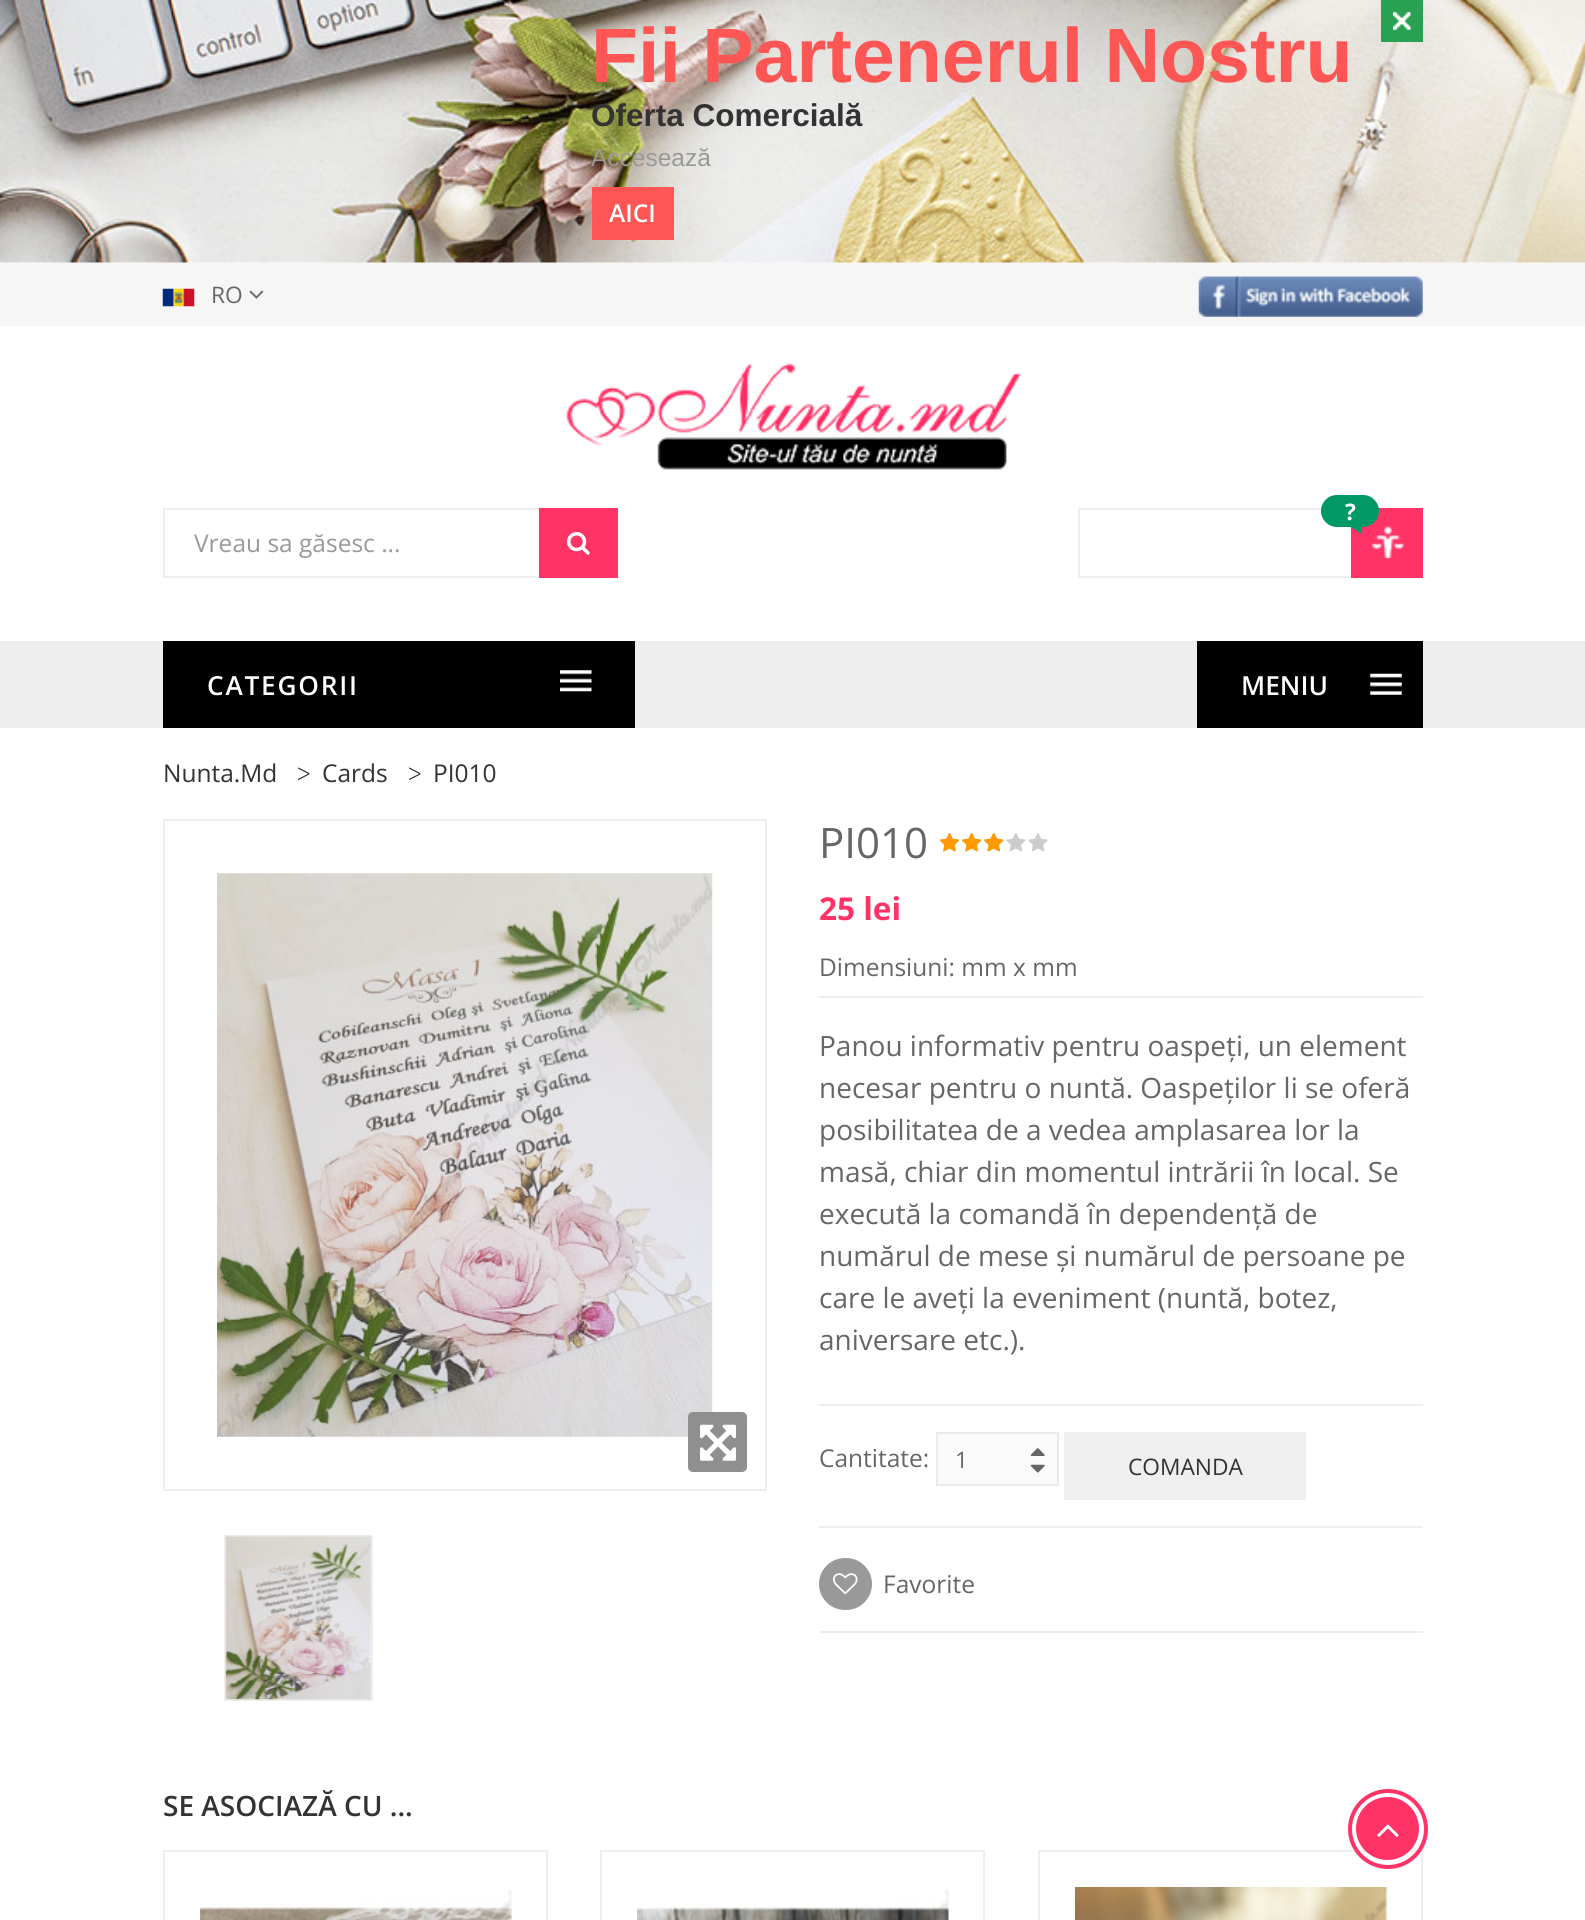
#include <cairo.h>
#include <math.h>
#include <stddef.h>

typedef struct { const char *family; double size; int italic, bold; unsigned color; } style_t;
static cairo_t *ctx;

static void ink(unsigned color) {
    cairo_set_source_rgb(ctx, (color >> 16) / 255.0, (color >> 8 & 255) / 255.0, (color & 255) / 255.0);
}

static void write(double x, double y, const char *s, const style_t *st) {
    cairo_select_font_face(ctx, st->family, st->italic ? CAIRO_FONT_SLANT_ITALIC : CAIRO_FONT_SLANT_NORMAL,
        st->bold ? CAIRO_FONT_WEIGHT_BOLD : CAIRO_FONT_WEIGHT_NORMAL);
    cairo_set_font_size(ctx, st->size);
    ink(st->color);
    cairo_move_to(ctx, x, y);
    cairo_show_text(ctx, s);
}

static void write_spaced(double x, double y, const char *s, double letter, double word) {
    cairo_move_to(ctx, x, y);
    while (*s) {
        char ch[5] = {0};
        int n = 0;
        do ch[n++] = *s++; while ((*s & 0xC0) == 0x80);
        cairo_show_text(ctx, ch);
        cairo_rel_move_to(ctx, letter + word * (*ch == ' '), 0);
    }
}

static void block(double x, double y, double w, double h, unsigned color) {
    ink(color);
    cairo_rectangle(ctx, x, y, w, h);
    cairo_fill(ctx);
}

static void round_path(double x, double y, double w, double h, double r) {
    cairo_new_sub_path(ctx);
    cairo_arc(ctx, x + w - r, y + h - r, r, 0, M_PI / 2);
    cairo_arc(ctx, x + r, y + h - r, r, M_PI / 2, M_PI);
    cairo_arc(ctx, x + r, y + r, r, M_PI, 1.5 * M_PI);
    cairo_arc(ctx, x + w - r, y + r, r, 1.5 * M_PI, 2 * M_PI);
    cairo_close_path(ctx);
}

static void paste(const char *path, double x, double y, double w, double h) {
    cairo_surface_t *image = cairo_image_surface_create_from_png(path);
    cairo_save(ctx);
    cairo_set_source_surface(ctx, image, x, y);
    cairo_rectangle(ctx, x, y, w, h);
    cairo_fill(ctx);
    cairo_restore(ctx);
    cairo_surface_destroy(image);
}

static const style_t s1 = {"Liberation Sans", 77, 0, 1, 0xfe5654};
static const style_t s2 = {"Liberation Sans", 31.5, 0, 1, 0x333333};
static const style_t s3 = {"Liberation Sans", 24.5, 0, 0, 0x999999};
static const style_t s4 = {"Open Sans SemiBold", 24.5, 0, 0, 0xffffff};
static const style_t s5 = {"Open Sans", 22.75, 0, 0, 0x666666};
static const style_t s6 = {"Open Sans", 22.75, 0, 1, 0xffffff};
static const style_t s7 = {"Open Sans", 24.5, 0, 0, 0x999999};
static const style_t s8 = {"Open Sans SemiBold", 26.25, 0, 0, 0xffffff};
static const style_t s9 = {"Open Sans", 24.5, 0, 0, 0x333333};
static const style_t s10 = {"Libre Baskerville", 24.5, 0, 0, 0x333333};
static const style_t s11 = {"Open Sans", 42, 0, 0, 0x666666};
static const style_t s12 = {"Open Sans", 31.5, 0, 1, 0xff3366};
static const style_t s13 = {"Open Sans", 24.5, 0, 0, 0x666666};
static const style_t s14 = {"Open Sans", 28, 0, 0, 0x666666};
static const style_t s15 = {"Open Sans", 22.75, 0, 0, 0x333333};
static const style_t s16 = {"Open Sans SemiBold", 28, 0, 0, 0x333333};

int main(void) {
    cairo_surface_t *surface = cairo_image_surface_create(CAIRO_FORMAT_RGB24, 1585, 1920);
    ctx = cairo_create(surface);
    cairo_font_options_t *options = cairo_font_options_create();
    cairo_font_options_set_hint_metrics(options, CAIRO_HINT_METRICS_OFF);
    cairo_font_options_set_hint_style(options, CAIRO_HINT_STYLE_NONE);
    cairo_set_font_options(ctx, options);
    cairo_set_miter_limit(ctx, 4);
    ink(0xffffff);
    cairo_paint(ctx);
    paste("pic1.png", 0, 0, 1585, 263);
    block(1381, 0, 42, 42, 0x28a152);
    paste("pic2.png", 1393, 12, 18, 18);
    write(591, 82, "Fii Partenerul Nostru", &s1);
    write(591, 126, "Oferta Comercială", &s2);
    write(591, 166, "Accesează", &s3);
    block(592, 187, 82, 53, 0xfe5654);
    write(609, 222, "AICI", &s4);
    block(0, 263, 1585, 63, 0xf6f6f6);
    paste("pic3.png", 162, 288, 33, 19);
    write(211, 303, "RO", &s5);
    paste("pic4.png", 249, 290, 15, 9);
    paste("pic5.png", 1198, 276, 225, 41);
    paste("pic6.png", 566, 363, 455, 107);
    block(1078, 508, 244, 2, 0xeeeeee);
    block(1078, 576, 273, 2, 0xeeeeee);
    block(1078, 508, 2, 70, 0xeeeeee);
    block(1351, 508, 72, 70, 0xff3366);
    paste("pic7.png", 1372, 526, 32, 33);
    ink(0x009966);
    round_path(1321, 495, 58, 32, 16);
    cairo_fill(ctx);
    write(1345, 520, "?", &s6);
    ink(0x009966);
    cairo_new_path(ctx);
    cairo_move_to(ctx, 1361.5, 527);
    cairo_line_to(ctx, 1361.5, 534);
    cairo_line_to(ctx, 1351, 527);
    cairo_close_path(ctx);
    cairo_fill(ctx);
    cairo_rectangle(ctx, 164, 509, 453, 68);
    ink(0xeeeeee);
    cairo_stroke(ctx);
    write(194, 552, "Vreau sa găsesc ...", &s7);
    block(539, 508, 79, 70, 0xff3366);
    paste("pic8.png", 567, 532, 23, 23);
    block(0, 641, 1585, 87, 0xeeeeee);
    block(163, 641, 472, 87, 0x000000);
    paste("pic9.png", 560, 670, 32, 22);
    cairo_select_font_face(ctx, "Open Sans SemiBold", CAIRO_FONT_SLANT_NORMAL, CAIRO_FONT_WEIGHT_NORMAL);
    cairo_set_font_size(ctx, 26.25);
    ink(0xffffff);
    write_spaced(207, 695, "CATEGORII", 1.75, 0);
    block(1197, 641, 226, 87, 0x000000);
    paste("pic10.png", 1370, 673, 32, 22);
    write(1241, 695, "MENIU", &s8);
    write(163, 782, "Nunta.Md", &s9);
    write(296, 782, ">", &s10);
    write(322, 782, "Cards", &s9);
    write(407, 782, ">", &s10);
    write(433, 782, "PI010", &s9);
    cairo_rectangle(ctx, 164, 820, 602, 670);
    ink(0xeeeeee);
    cairo_stroke(ctx);
    paste("pic11.png", 217, 873, 496, 564);
    ink(0x8f8f8f);
    round_path(688, 1412, 59, 60, 5);
    cairo_fill(ctx);
    paste("pic12.png", 700, 1424, 36, 37);
    cairo_rectangle(ctx, 225, 1536, 147, 164);
    ink(0xeeeeee);
    cairo_stroke(ctx);
    paste("pic13.png", 225, 1536, 146, 164);
    write(819, 858, "PI010", &s11);
    paste("pic15.png", 940, 833, 108, 19);
    paste("pic14.png", 940, 832, 64, 20);
    write(819, 920, "25 lei", &s12);
    write(819, 976, "Dimensiuni: mm x mm", &s13);
    block(819, 996, 604, 2, 0xeeeeee);
    write(819, 1056, "Panou informativ pentru oaspeți, un element", &s14);
    write(819, 1098, "necesar pentru o nuntă. Oaspeților li se oferă", &s14);
    write(819, 1140, "posibilitatea de a vedea amplasarea lor la", &s14);
    write(819, 1182, "masă, chiar din momentul intrării în local. Se", &s14);
    write(819, 1224, "execută la comandă în dependență de", &s14);
    write(819, 1266, "numărul de mese și numărul de persoane pe", &s14);
    write(819, 1308, "care le aveți la eveniment (nuntă, botez,", &s14);
    write(819, 1350, "aniversare etc.).", &s14);
    block(819, 1404, 604, 2, 0xeeeeee);
    block(819, 1526, 604, 2, 0xeeeeee);
    write(819, 1467, "Cantitate:", &s13);
    ink(0xfafafa);
    cairo_rectangle(ctx, 937, 1433, 121, 52);
    cairo_fill_preserve(ctx);
    ink(0xeaeaea);
    cairo_stroke(ctx);
    write(955, 1468, "1", &s5);
    paste("pic16.png", 1030, 1448, 15, 8);
    paste("pic17.png", 1030, 1464, 15, 9);
    block(1064, 1432, 242, 68, 0xefefef);
    write(1128, 1475, "COMANDA", &s15);
    ink(0x999999);
    round_path(819, 1558, 53, 52, 26);
    cairo_fill(ctx);
    paste("pic18.png", 833, 1573, 25, 22);
    write(883, 1593, "Favorite", &s13);
    block(819, 1631, 604, 2, 0xeeeeee);
    write(163, 1816, "SE ASOCIAZĂ CU ...", &s16);
    cairo_rectangle(ctx, 164, 1851, 383, 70);
    ink(0xeeeeee);
    cairo_stroke(ctx);
    paste("pic19.png", 200, 1889, 312, 31);
    cairo_rectangle(ctx, 601, 1851, 383, 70);
    cairo_stroke(ctx);
    paste("pic20.png", 637, 1889, 312, 31);
    cairo_rectangle(ctx, 1039, 1851, 383, 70);
    cairo_stroke(ctx);
    paste("pic21.png", 1075, 1887, 312, 33);
    cairo_arc(ctx, 1388, 1829, 38, 0, 2 * M_PI);
    ink(0xff3366);
    cairo_set_line_width(ctx, 4);
    cairo_stroke(ctx);
    cairo_arc(ctx, 1387.5, 1828.5, 31.5, 0, 2 * M_PI);
    cairo_fill(ctx);
    paste("pic22.png", 1377, 1824, 22, 13);
    cairo_surface_write_to_png(surface, "screenshot.png");
    cairo_font_options_destroy(options);
    cairo_destroy(ctx);
    cairo_surface_destroy(surface);
    return 0;
}
